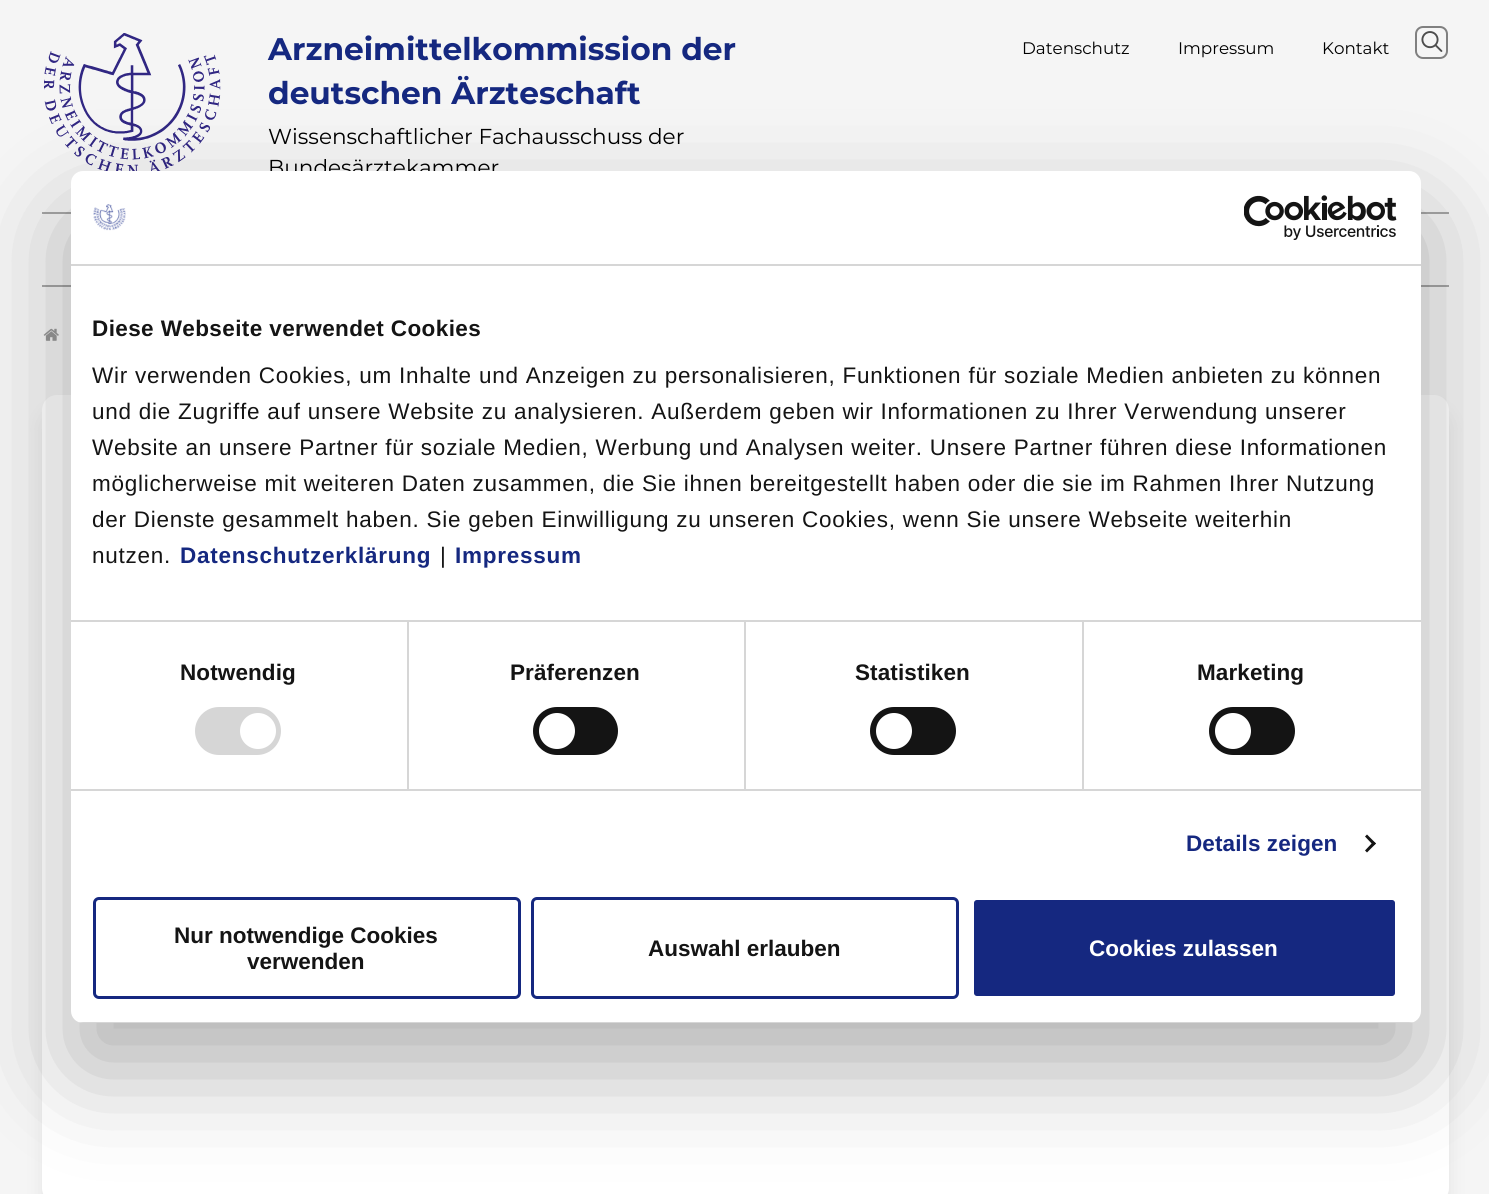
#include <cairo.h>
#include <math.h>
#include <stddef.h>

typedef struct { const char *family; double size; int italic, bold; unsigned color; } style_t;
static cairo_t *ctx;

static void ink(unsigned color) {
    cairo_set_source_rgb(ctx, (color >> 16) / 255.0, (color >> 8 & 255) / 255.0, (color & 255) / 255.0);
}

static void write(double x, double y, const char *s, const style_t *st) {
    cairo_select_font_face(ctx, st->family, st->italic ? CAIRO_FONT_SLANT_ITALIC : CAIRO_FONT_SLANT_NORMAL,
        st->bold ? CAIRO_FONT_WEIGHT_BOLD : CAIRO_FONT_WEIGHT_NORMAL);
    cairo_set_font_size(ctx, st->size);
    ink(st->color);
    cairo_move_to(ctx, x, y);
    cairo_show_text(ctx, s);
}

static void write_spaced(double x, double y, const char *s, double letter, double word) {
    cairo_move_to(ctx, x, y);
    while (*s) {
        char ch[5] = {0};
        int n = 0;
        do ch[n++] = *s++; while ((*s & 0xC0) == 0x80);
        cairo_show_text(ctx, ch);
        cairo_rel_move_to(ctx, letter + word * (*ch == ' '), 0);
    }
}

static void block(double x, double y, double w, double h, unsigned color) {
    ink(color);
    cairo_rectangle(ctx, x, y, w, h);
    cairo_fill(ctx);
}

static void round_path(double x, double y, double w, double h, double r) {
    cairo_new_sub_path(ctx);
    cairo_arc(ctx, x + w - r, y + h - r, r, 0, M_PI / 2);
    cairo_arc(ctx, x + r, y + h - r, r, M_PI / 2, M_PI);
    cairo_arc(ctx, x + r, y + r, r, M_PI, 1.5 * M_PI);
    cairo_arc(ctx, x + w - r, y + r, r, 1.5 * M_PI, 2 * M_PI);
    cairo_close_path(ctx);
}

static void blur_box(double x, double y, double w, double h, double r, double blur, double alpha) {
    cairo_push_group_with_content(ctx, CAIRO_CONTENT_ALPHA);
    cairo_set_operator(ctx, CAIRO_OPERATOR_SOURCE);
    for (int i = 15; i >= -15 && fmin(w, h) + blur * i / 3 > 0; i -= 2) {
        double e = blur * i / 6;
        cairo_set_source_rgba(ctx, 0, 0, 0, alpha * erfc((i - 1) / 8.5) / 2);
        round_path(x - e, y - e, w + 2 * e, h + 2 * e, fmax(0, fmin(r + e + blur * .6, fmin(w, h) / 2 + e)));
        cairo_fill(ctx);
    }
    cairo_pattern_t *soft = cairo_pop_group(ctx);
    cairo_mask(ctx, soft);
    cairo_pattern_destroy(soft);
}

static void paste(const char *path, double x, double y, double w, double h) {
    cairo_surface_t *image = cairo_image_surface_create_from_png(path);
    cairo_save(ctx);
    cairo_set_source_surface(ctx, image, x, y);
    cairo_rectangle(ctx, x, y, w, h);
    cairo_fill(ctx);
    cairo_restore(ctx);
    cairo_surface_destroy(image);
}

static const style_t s1 = {"Montserrat", 31.25, 0, 1, 0x152880};
static const style_t s2 = {"Montserrat", 21.6, 0, 0, 0x000000};
static const style_t s3 = {"Montserrat", 16.75, 0, 0, 0x000000};
static const style_t s4 = {"Liberation Sans", 22.5, 0, 1, 0x141414};
static const style_t s5 = {"Liberation Sans", 22.5, 0, 1, 0xffffff};

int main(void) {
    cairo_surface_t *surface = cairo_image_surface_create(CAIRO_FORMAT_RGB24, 1489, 1194);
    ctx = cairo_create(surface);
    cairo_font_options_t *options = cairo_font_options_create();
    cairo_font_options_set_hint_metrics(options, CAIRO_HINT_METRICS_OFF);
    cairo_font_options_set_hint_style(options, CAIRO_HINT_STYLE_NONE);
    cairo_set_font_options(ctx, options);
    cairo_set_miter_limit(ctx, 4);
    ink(0xf5f5f5);
    cairo_paint(ctx);
    paste("pic1.png", 44, 33, 177, 138);
    write(268, 60, "Arzneimittelkommission der", &s1);
    write(268, 104, "deutschen Ärzteschaft", &s1);
    write(268, 144, "Wissenschaftlicher Fachausschuss der", &s2);
    write(268, 175, "Bundesärztekammer", &s2);
    write(1022, 54, "Datenschutz", &s3);
    write(1178, 54, "Impressum", &s3);
    write(1322, 54, "Kontakt", &s3);
    round_path(1416, 27, 31, 31, 7);
    ink(0x808080);
    cairo_stroke(ctx);
    paste("pic2.png", 1421, 31, 22, 21);
    block(42, 212, 1407, 2, 0xa6a6a6);
    block(42, 285, 1407, 2, 0xa6a6a6);
    paste("pic5.png", 43, 328, 16, 13);
    ink(0x000000);
    blur_box(47, 414, 1398, 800, 11, 11, 0.1);
    ink(0xffffff);
    round_path(42, 395, 1407, 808, 15);
    cairo_fill(ctx);
    ink(0x000000);
    blur_box(71, 219, 1350, 852, 12, 51, 0.3);
    ink(0xffffff);
    round_path(71, 171, 1350, 852, 12);
    cairo_fill(ctx);
    block(71, 264, 1350, 2, 0xd6d6d6);
    paste("pic3.png", 93, 204, 33, 27);
    paste("pic4.png", 1244, 195, 153, 45);
    block(407, 621, 2, 168, 0xd6d6d6);
    block(744, 621, 2, 168, 0xd6d6d6);
    block(1082, 621, 2, 168, 0xd6d6d6);
    block(71, 620, 1350, 2, 0xd6d6d6);
    cairo_select_font_face(ctx, "Liberation Sans", CAIRO_FONT_SLANT_NORMAL, CAIRO_FONT_WEIGHT_BOLD);
    cairo_set_font_size(ctx, 22.5);
    ink(0x141414);
    write_spaced(92, 336, "Diese Webseite verwendet Cookies", 0.4, 0);
    cairo_select_font_face(ctx, "Liberation Sans", CAIRO_FONT_SLANT_NORMAL, CAIRO_FONT_WEIGHT_NORMAL);
    write_spaced(92, 383, "Wir verwenden Cookies, um Inhalte und Anzeigen zu personalisieren, Funktionen für soziale Medien anbieten zu können", 0.75, 0);
    write_spaced(92, 419, "und die Zugriffe auf unsere Website zu analysieren. Außerdem geben wir Informationen zu Ihrer Verwendung unserer", 0.75, 0);
    write_spaced(92, 455, "Website an unsere Partner für soziale Medien, Werbung und Analysen weiter. Unsere Partner führen diese Informationen", 0.75, 0);
    write_spaced(92, 491, "möglicherweise mit weiteren Daten zusammen, die Sie ihnen bereitgestellt haben oder die sie im Rahmen Ihrer Nutzung", 0.75, 0);
    write_spaced(92, 527, "der Dienste gesammelt haben. Sie geben Einwilligung zu unseren Cookies, wenn Sie unsere Webseite weiterhin", 0.75, 0);
    write_spaced(92, 563, "nutzen.", 0.75, 0);
    cairo_select_font_face(ctx, "Liberation Sans", CAIRO_FONT_SLANT_NORMAL, CAIRO_FONT_WEIGHT_BOLD);
    ink(0x152880);
    write_spaced(180, 563, "Datenschutzerklärung", 0.75, 0);
    cairo_select_font_face(ctx, "Liberation Sans", CAIRO_FONT_SLANT_NORMAL, CAIRO_FONT_WEIGHT_NORMAL);
    ink(0x141414);
    write_spaced(440, 563, "|", 0.75, 0);
    cairo_select_font_face(ctx, "Liberation Sans", CAIRO_FONT_SLANT_NORMAL, CAIRO_FONT_WEIGHT_BOLD);
    ink(0x152880);
    write_spaced(455, 563, "Impressum", 0.75, 0);
    block(71, 789, 1350, 2, 0xd6d6d6);
    ink(0x141414);
    write_spaced(180, 680, "Notwendig", 0.1, 0);
    ink(0xd6d6d6);
    round_path(195, 707, 86, 48, 24);
    cairo_fill(ctx);
    ink(0xffffff);
    cairo_arc(ctx, 258, 731, 18, 0, 2 * M_PI);
    cairo_fill(ctx);
    ink(0x141414);
    write_spaced(510, 680, "Präferenzen", 0.1, 0);
    round_path(533, 707, 85, 48, 24);
    cairo_fill(ctx);
    ink(0xffffff);
    cairo_arc(ctx, 557, 731, 18, 0, 2 * M_PI);
    cairo_fill(ctx);
    ink(0x141414);
    write_spaced(855, 680, "Statistiken", 0.1, 0);
    round_path(870, 707, 86, 48, 24);
    cairo_fill(ctx);
    ink(0xffffff);
    cairo_arc(ctx, 894, 731, 18, 0, 2 * M_PI);
    cairo_fill(ctx);
    ink(0x141414);
    write_spaced(1197, 680, "Marketing", 0.1, 0);
    round_path(1209, 707, 86, 48, 24);
    cairo_fill(ctx);
    ink(0xffffff);
    cairo_arc(ctx, 1233, 731, 18, 0, 2 * M_PI);
    cairo_fill(ctx);
    ink(0x152880);
    write_spaced(1186, 851, "Details zeigen", 0.1, 0);
    ink(0x141414);
    cairo_new_path(ctx);
    cairo_move_to(ctx, 1367, 834.5);
    cairo_line_to(ctx, 1376, 843.5);
    cairo_line_to(ctx, 1373.5, 845.5);
    cairo_line_to(ctx, 1365, 836.5);
    cairo_close_path(ctx);
    cairo_fill(ctx);
    cairo_new_path(ctx);
    cairo_move_to(ctx, 1373.5, 841.5);
    cairo_line_to(ctx, 1376, 843.5);
    cairo_line_to(ctx, 1367, 852.5);
    cairo_line_to(ctx, 1365, 850.5);
    cairo_close_path(ctx);
    cairo_fill(ctx);
    cairo_save(ctx);
    round_path(71, 171, 1350, 852, 12);
    cairo_clip(ctx);
    block(71, 1022, 1350, 1, 0xd6d6d6);
    cairo_restore(ctx);
    round_path(94.5, 898.5, 425, 99, 4.5);
    ink(0x152880);
    cairo_set_line_width(ctx, 3);
    cairo_stroke(ctx);
    write(174, 943, "Nur notwendige Cookies", &s4);
    write(247, 969, "verwenden", &s4);
    round_path(532.5, 898.5, 425, 99, 4.5);
    ink(0x152880);
    cairo_stroke(ctx);
    write(648, 956, "Auswahl erlauben", &s4);
    ink(0x152880);
    round_path(972.5, 898.5, 424, 99, 4.5);
    cairo_fill_preserve(ctx);
    ink(0xffffff);
    cairo_stroke(ctx);
    write(1089, 956, "Cookies zulassen", &s5);
    cairo_surface_write_to_png(surface, "screenshot.png");
    cairo_font_options_destroy(options);
    cairo_destroy(ctx);
    cairo_surface_destroy(surface);
    return 0;
}
